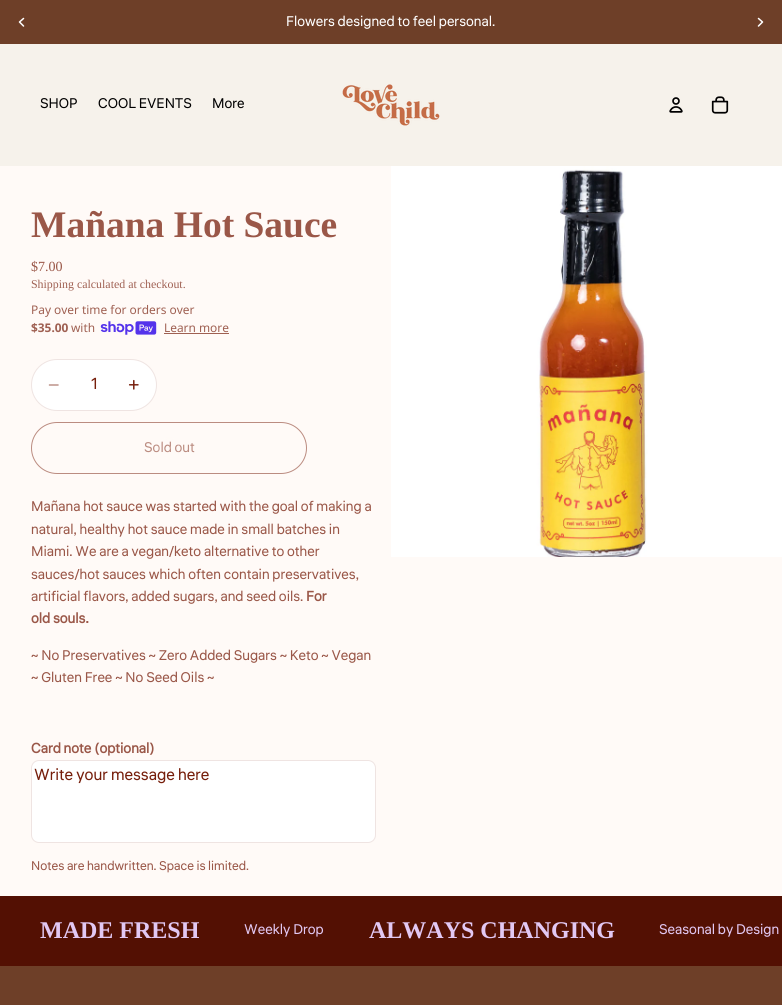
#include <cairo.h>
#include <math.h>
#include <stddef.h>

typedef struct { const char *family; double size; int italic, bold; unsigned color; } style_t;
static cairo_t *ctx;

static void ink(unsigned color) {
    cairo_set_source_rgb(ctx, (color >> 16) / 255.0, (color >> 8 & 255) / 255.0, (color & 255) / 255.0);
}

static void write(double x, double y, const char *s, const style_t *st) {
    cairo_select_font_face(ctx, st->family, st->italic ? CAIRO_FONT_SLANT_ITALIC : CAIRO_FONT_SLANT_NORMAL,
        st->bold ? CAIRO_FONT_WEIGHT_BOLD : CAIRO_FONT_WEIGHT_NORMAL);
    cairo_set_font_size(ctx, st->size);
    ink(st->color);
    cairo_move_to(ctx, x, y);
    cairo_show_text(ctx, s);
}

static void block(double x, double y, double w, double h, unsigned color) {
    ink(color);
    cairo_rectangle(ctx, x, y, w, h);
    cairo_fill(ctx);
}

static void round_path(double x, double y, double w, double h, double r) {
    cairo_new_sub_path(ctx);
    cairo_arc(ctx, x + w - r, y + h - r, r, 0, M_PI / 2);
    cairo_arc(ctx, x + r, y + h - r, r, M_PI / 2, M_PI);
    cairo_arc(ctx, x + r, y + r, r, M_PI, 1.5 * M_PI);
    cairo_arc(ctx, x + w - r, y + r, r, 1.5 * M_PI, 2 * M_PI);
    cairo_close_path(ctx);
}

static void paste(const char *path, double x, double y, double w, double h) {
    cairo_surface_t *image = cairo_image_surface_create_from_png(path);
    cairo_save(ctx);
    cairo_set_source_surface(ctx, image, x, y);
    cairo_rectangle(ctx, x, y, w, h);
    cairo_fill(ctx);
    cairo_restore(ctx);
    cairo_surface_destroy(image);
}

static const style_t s1 = {"Liter", 14, 0, 0, 0xffffff};
static const style_t s2 = {"Liter", 14, 0, 0, 0x000000};
static const style_t s3 = {"Liberation Serif", 37.5, 0, 1, 0x9a5748};
static const style_t s4 = {"Liberation Serif", 14, 0, 0, 0x9a5748};
static const style_t s5 = {"Liberation Serif", 11.9, 0, 0, 0x9f6052};
static const style_t s6 = {"Noto Sans", 11.9, 0, 0, 0x9f6052};
static const style_t s7 = {"Noto Sans", 11.9, 0, 1, 0x9f6052};
static const style_t s8 = {"Liter", 16, 0, 0, 0x761e0b};
static const style_t s9 = {"Liter", 14, 0, 0, 0xbb8c81};
static const style_t s10 = {"Liter", 14, 0, 0, 0x9a5748};
static const style_t s11 = {"Liter", 14, 0, 1, 0x9a5748};
static const style_t s12 = {"Liter", 12.6, 0, 0, 0x9a5748};
static const style_t s13 = {"Liberation Serif", 24, 0, 1, 0xe2c8f3};
static const style_t s14 = {"Liter", 14, 0, 0, 0xe2c8f3};

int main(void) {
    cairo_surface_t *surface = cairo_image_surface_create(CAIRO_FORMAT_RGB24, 782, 1005);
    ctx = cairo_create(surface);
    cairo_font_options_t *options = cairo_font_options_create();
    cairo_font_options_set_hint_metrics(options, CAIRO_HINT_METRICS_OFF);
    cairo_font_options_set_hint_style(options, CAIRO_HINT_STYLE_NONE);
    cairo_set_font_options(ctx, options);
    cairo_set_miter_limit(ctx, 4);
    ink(0xfffaf7);
    cairo_paint(ctx);
    block(0, 0, 782, 44, 0x6e3f28);
    write(286, 26, "Flowers designed to feel personal.", &s1);
    cairo_new_path(ctx);
    cairo_move_to(ctx, 23.5, 18.5);
    cairo_line_to(ctx, 19.5, 22);
    cairo_line_to(ctx, 23.5, 26);
    cairo_set_line_width(ctx, 1.5);
    cairo_set_line_cap(ctx, CAIRO_LINE_CAP_ROUND);
    cairo_set_line_join(ctx, CAIRO_LINE_JOIN_ROUND);
    cairo_stroke(ctx);
    cairo_new_path(ctx);
    cairo_move_to(ctx, 758.5, 18.5);
    cairo_line_to(ctx, 762.5, 22);
    cairo_line_to(ctx, 758.5, 26);
    cairo_stroke(ctx);
    block(0, 44, 782, 122, 0xf6f2eb);
    write(40, 108, "SHOP", &s2);
    write(98, 108, "COOL EVENTS", &s2);
    write(212, 108, "More", &s2);
    paste("pic1.png", 342, 84, 98, 42);
    paste("pic2.png", 669, 97, 14, 16);
    paste("pic3.png", 711, 96, 18, 18);
    write(31, 237, "Mañana Hot Sauce", &s3);
    write(31, 271, "$7.00", &s4);
    write(31, 288, "Shipping calculated at checkout.", &s5);
    write(31, 314, "Pay over time for orders over", &s6);
    write(31, 332, "$35.00", &s7);
    write(71, 332, "with", &s6);
    paste("pic4.png", 100, 321, 57, 14);
    write(164, 332, "Learn more", &s6);
    block(164, 333, 65, 1, 0x9f6052);
    ink(0xffffff);
    round_path(31, 359, 126, 52, 26);
    cairo_fill(ctx);
    round_path(31.5, 359.5, 125, 51, 25.5);
    cairo_set_source_rgba(ctx, 0.463, 0.118, 0.043, 0.12);
    cairo_set_line_width(ctx, 1);
    cairo_set_line_cap(ctx, CAIRO_LINE_CAP_BUTT);
    cairo_set_line_join(ctx, CAIRO_LINE_JOIN_MITER);
    cairo_stroke(ctx);
    cairo_new_path(ctx);
    cairo_move_to(ctx, 49.5, 385);
    cairo_line_to(ctx, 58, 385);
    ink(0xbb8f85);
    cairo_set_line_width(ctx, 1.5);
    cairo_set_line_cap(ctx, CAIRO_LINE_CAP_ROUND);
    cairo_stroke(ctx);
    write(91, 389, "1", &s8);
    paste("pic5.png", 128, 379, 11, 11);
    round_path(31.5, 422.5, 275, 51, 25.5);
    ink(0xbb8c81);
    cairo_set_line_width(ctx, 1);
    cairo_set_line_cap(ctx, CAIRO_LINE_CAP_BUTT);
    cairo_stroke(ctx);
    write(144, 452, "Sold out", &s9);
    cairo_new_path(ctx);
    cairo_arc(ctx, 169, 448, 10, 0, 2 * M_PI);
    cairo_set_source_rgba(ctx, 1, 0.98, 0.969, 0.2);
    cairo_set_line_width(ctx, 1.5);
    cairo_stroke(ctx);
    cairo_new_path(ctx);
    cairo_move_to(ctx, 166, 448.5);
    cairo_line_to(ctx, 168, 451);
    cairo_line_to(ctx, 172, 445.5);
    cairo_set_line_cap(ctx, CAIRO_LINE_CAP_ROUND);
    cairo_set_line_join(ctx, CAIRO_LINE_JOIN_ROUND);
    cairo_stroke(ctx);
    write(31, 511, "Mañana hot sauce was started with the goal of making a", &s10);
    write(31, 534, "natural, healthy hot sauce made in small batches in", &s10);
    write(31, 556, "Miami. We are a vegan/keto alternative to other", &s10);
    write(31, 579, "sauces/hot sauces which often contain preservatives,", &s10);
    write(31, 601, "artificial flavors, added sugars, and seed oils.", &s10);
    write(306, 601, "For", &s11);
    write(31, 623, "old souls.", &s11);
    write(31, 660, "~ No Preservatives ~ Zero Added Sugars ~ Keto ~ Vegan", &s10);
    write(31, 682, "~ Gluten Free ~ No Seed Oils ~", &s10);
    write(31, 753, "Card note (optional)", &s11);
    ink(0xffffff);
    round_path(31, 760, 345, 83, 8);
    cairo_fill(ctx);
    round_path(31.5, 760.5, 344, 82, 7.5);
    cairo_set_source_rgba(ctx, 0.463, 0.118, 0.043, 0.12);
    cairo_set_line_width(ctx, 1);
    cairo_set_line_cap(ctx, CAIRO_LINE_CAP_BUTT);
    cairo_set_line_join(ctx, CAIRO_LINE_JOIN_MITER);
    cairo_stroke(ctx);
    write(34, 780, "Write your message here", &s8);
    write(31, 870, "Notes are handwritten. Space is limited.", &s12);
    paste("pic6.png", 391, 166, 391, 391);
    block(0, 896, 782, 70, 0x531003);
    write(40, 938, "MADE FRESH", &s13);
    write(244, 934, "Weekly Drop", &s14);
    write(369, 938, "ALWAYS CHANGING", &s13);
    write(659, 934, "Seasonal by Design", &s14);
    block(0, 966, 782, 39, 0x6e3f28);
    cairo_surface_write_to_png(surface, "screenshot.png");
    cairo_font_options_destroy(options);
    cairo_destroy(ctx);
    cairo_surface_destroy(surface);
    return 0;
}
